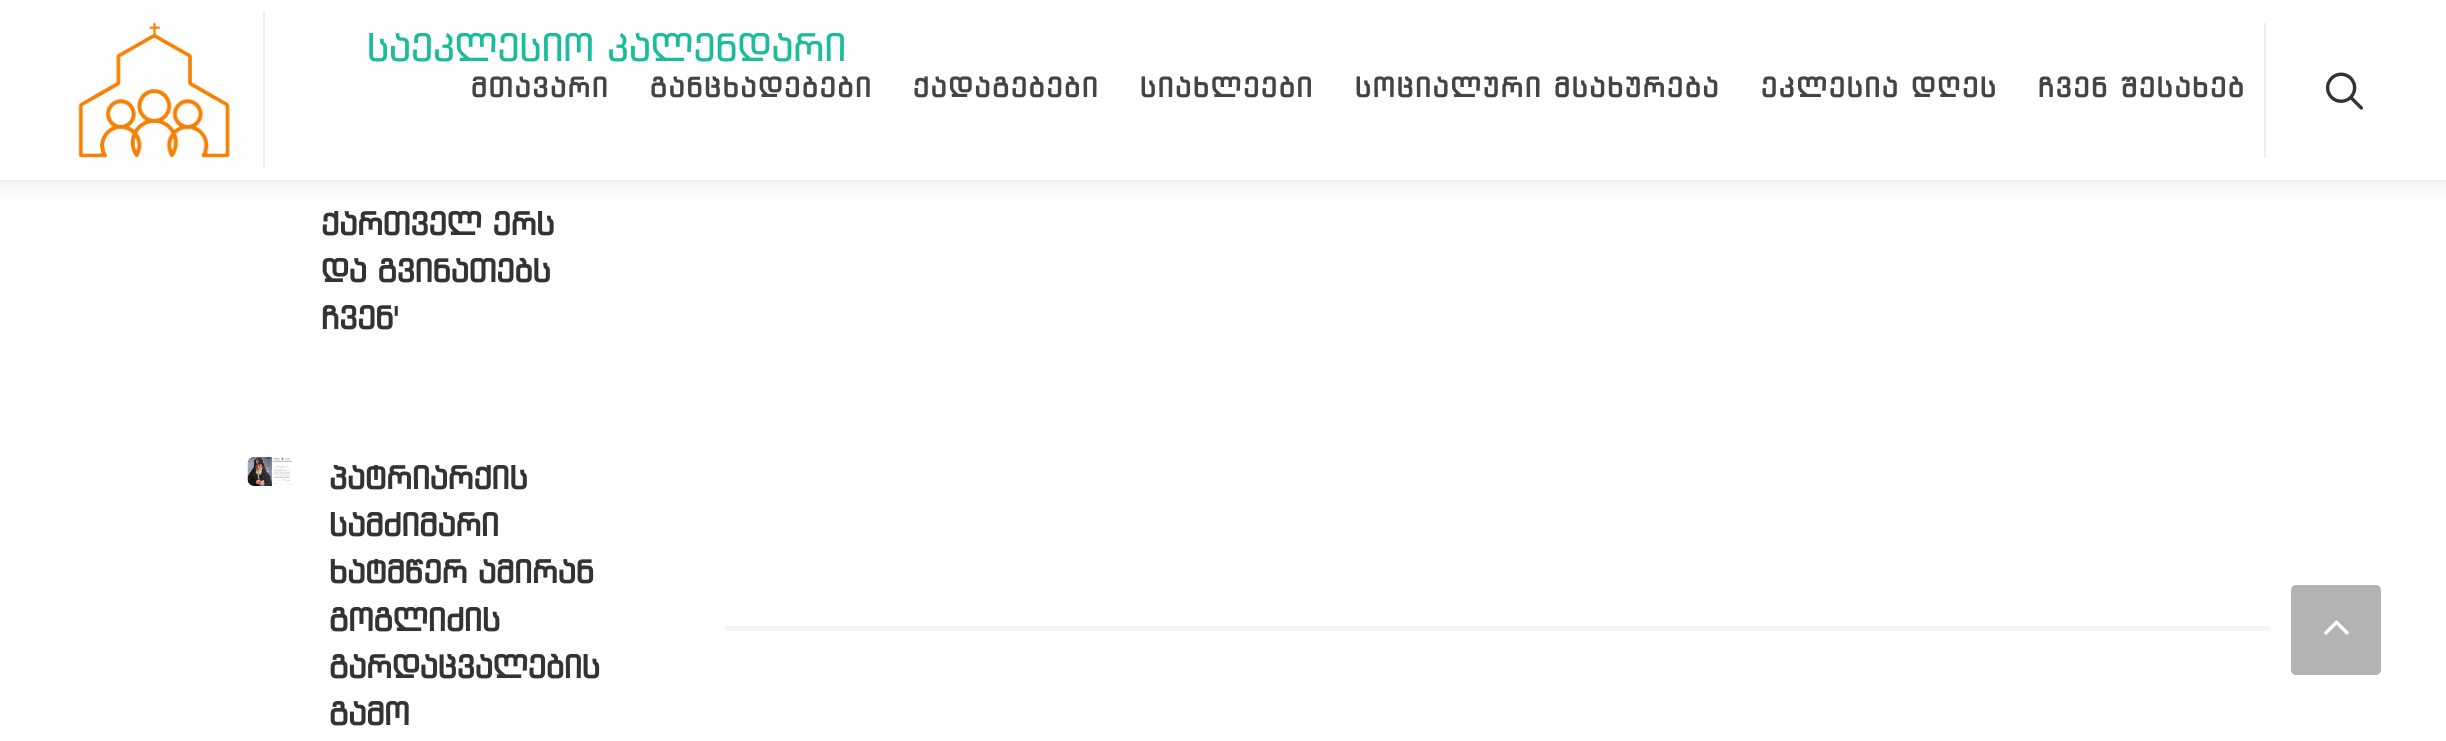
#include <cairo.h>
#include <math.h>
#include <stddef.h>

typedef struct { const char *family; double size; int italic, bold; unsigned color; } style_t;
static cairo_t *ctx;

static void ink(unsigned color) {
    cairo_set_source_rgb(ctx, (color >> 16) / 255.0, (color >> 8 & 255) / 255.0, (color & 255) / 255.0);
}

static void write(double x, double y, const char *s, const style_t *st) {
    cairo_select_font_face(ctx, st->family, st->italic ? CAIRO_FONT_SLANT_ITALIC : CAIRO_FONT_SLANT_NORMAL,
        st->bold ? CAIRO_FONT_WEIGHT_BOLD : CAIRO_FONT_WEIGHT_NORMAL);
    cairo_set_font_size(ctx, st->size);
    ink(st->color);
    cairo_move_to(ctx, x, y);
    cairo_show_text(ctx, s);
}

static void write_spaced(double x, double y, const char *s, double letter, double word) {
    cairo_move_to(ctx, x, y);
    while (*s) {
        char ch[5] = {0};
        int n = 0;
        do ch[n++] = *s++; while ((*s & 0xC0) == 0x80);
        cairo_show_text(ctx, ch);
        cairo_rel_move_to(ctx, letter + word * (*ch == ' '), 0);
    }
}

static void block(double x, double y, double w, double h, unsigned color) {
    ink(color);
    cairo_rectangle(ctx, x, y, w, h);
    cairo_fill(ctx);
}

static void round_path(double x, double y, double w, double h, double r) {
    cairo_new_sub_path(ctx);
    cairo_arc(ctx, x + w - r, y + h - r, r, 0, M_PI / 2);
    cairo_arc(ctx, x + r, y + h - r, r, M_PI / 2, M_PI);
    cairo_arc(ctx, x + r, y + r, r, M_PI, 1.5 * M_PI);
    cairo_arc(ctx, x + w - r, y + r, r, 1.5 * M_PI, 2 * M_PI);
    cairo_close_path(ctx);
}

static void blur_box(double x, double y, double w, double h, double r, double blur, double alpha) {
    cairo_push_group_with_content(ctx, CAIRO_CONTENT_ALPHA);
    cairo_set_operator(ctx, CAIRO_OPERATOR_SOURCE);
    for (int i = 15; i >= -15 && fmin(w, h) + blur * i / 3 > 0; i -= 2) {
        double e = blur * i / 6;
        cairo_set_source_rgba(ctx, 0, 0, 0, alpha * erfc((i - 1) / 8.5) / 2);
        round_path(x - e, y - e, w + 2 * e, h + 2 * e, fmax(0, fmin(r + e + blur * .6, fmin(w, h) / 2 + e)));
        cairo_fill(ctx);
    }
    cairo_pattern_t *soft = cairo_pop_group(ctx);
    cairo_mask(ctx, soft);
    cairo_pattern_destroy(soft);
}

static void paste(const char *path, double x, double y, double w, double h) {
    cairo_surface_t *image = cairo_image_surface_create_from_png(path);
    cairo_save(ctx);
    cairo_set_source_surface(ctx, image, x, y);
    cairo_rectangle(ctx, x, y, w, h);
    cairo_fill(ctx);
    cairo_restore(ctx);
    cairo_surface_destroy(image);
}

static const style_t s1 = {"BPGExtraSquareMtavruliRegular", 38.25, 0, 0, 0x1abc9c};
static const style_t s2 = {"BPGExtraSquareMtavruliRegular", 31.5, 0, 1, 0x333333};

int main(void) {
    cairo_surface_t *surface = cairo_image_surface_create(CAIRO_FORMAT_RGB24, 2446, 741);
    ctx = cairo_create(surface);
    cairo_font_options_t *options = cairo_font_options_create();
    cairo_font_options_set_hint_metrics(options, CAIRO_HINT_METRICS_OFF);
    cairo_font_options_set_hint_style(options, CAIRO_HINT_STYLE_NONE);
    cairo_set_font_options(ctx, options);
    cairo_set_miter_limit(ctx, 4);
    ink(0xffffff);
    cairo_paint(ctx);
    ink(0x000000);
    blur_box(0, 0, 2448, 182, 0, 11, 0.1);
    block(0, 0, 2446, 180, 0xffffff);
    block(0, 180, 2446, 2, 0xeeeeee);
    block(263, 11, 2, 158, 0xeeeeee);
    paste("pic1.png", 78, 22, 152, 136);
    write(367, 61, "საეკლესიო კალენდარი", &s1);
    block(2264, 23, 2, 135, 0xeeeeee);
    cairo_select_font_face(ctx, "BPGExtraSquareMtavruliRegular", CAIRO_FONT_SLANT_NORMAL, CAIRO_FONT_WEIGHT_BOLD);
    cairo_set_font_size(ctx, 27);
    ink(0x444444);
    write_spaced(471, 97, "მთავარი", 2.25, 0);
    write_spaced(650, 97, "განცხადებები", 2.25, 0);
    write_spaced(913, 97, "ქადაგებები", 2.25, 0);
    write_spaced(1140, 97, "სიახლეები", 2.25, 0);
    write_spaced(1355, 97, "სოციალური მსახურება", 2.25, 0);
    write_spaced(1761, 97, "ეკლესია დღეს", 2.25, 0);
    write_spaced(2038, 97, "ჩვენ შესახებ", 2.25, 0);
    paste("pic2.png", 2325, 72, 38, 38);
    write(321, 235, "ქართველ ერს", &s2);
    write(321, 282, "და გვინათებს", &s2);
    write(321, 329, "ჩვენ'", &s2);
    paste("pic3.png", 247, 456, 45, 30);
    write(329, 489, "პატრიარქის", &s2);
    write(329, 536, "სამძიმარი", &s2);
    write(329, 583, "ხატმწერ ამირან", &s2);
    write(329, 631, "გოგლიძის", &s2);
    write(329, 678, "გარდაცვალების", &s2);
    write(329, 725, "გამო", &s2);
    block(725, 626, 1545, 5, 0xf5f5f5);
    ink(0xb3b3b3);
    round_path(2291, 585, 90, 90, 5);
    cairo_fill(ctx);
    paste("pic4.png", 2324, 620, 25, 15);
    cairo_surface_write_to_png(surface, "screenshot.png");
    cairo_font_options_destroy(options);
    cairo_destroy(ctx);
    cairo_surface_destroy(surface);
    return 0;
}
